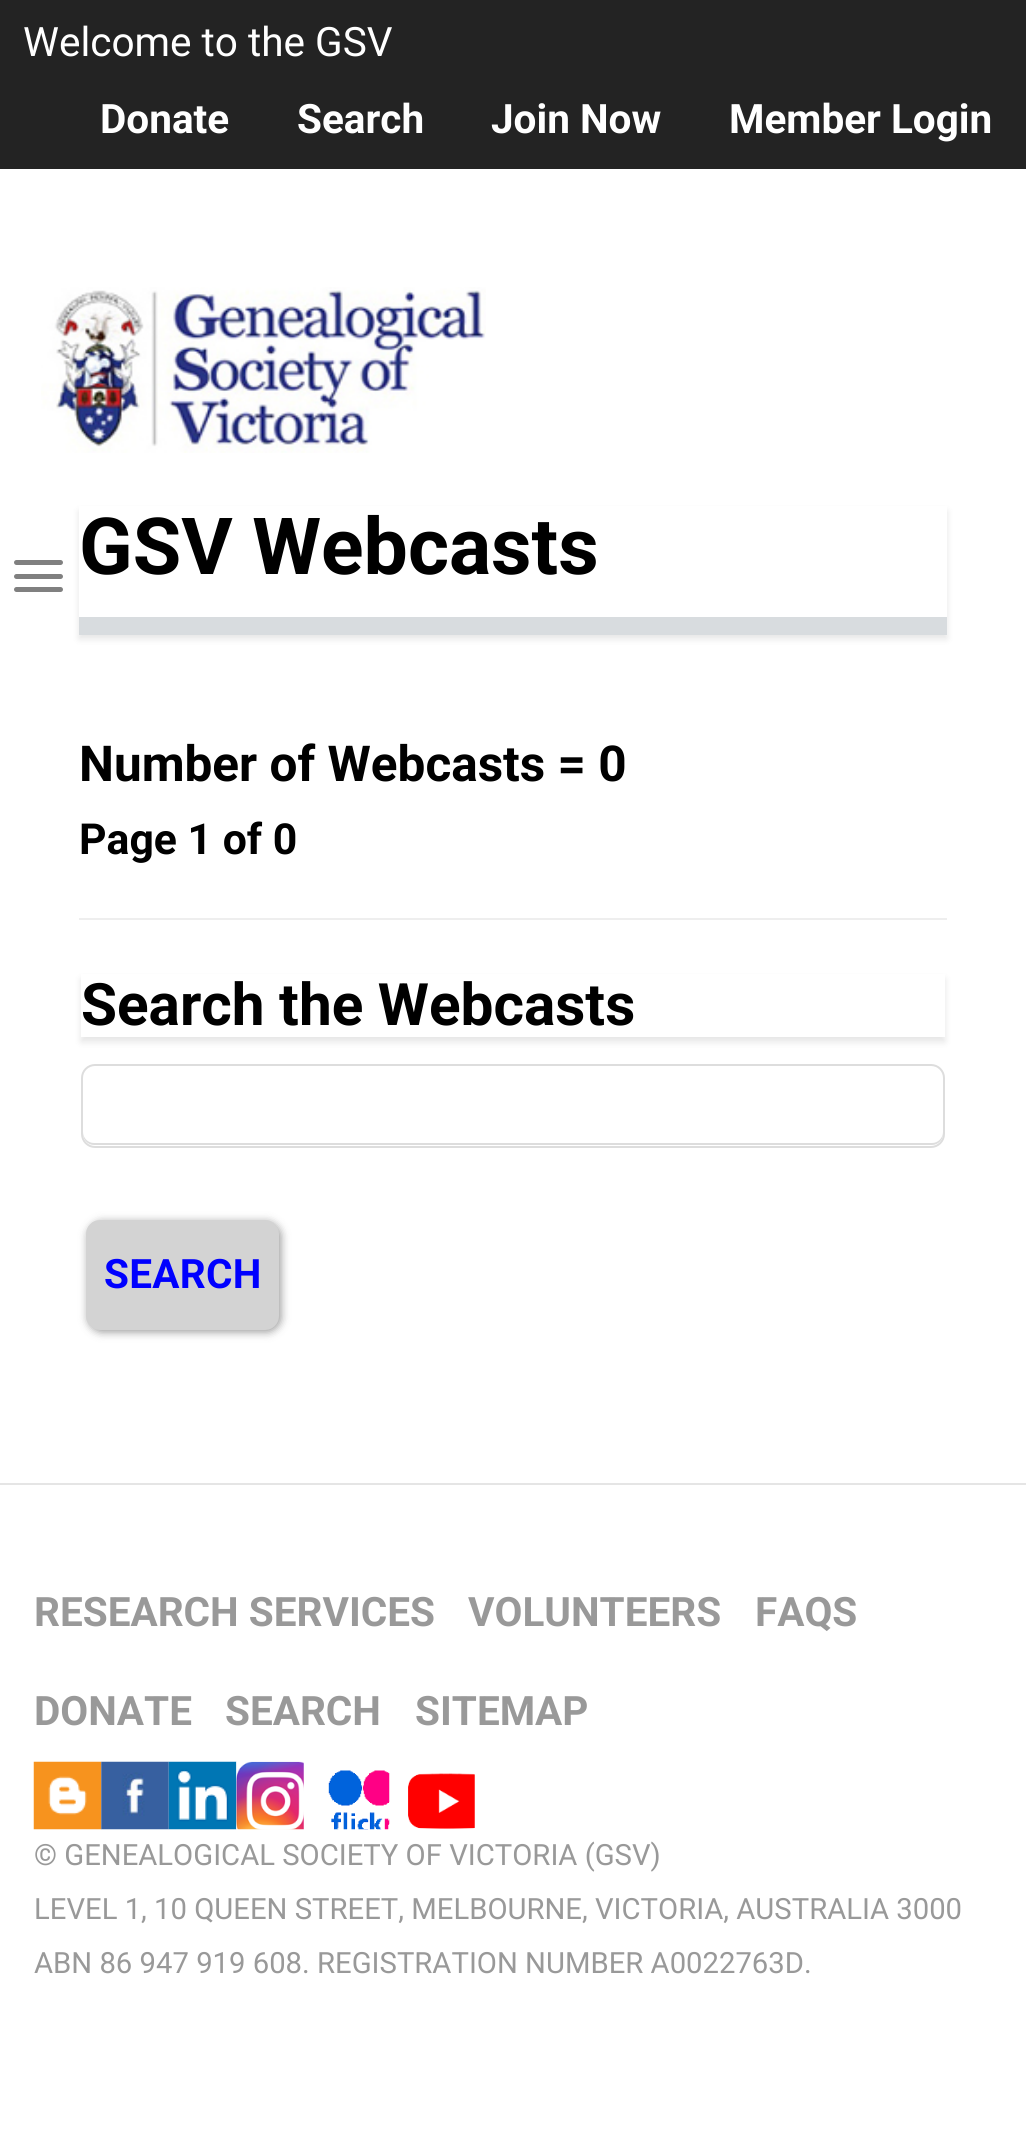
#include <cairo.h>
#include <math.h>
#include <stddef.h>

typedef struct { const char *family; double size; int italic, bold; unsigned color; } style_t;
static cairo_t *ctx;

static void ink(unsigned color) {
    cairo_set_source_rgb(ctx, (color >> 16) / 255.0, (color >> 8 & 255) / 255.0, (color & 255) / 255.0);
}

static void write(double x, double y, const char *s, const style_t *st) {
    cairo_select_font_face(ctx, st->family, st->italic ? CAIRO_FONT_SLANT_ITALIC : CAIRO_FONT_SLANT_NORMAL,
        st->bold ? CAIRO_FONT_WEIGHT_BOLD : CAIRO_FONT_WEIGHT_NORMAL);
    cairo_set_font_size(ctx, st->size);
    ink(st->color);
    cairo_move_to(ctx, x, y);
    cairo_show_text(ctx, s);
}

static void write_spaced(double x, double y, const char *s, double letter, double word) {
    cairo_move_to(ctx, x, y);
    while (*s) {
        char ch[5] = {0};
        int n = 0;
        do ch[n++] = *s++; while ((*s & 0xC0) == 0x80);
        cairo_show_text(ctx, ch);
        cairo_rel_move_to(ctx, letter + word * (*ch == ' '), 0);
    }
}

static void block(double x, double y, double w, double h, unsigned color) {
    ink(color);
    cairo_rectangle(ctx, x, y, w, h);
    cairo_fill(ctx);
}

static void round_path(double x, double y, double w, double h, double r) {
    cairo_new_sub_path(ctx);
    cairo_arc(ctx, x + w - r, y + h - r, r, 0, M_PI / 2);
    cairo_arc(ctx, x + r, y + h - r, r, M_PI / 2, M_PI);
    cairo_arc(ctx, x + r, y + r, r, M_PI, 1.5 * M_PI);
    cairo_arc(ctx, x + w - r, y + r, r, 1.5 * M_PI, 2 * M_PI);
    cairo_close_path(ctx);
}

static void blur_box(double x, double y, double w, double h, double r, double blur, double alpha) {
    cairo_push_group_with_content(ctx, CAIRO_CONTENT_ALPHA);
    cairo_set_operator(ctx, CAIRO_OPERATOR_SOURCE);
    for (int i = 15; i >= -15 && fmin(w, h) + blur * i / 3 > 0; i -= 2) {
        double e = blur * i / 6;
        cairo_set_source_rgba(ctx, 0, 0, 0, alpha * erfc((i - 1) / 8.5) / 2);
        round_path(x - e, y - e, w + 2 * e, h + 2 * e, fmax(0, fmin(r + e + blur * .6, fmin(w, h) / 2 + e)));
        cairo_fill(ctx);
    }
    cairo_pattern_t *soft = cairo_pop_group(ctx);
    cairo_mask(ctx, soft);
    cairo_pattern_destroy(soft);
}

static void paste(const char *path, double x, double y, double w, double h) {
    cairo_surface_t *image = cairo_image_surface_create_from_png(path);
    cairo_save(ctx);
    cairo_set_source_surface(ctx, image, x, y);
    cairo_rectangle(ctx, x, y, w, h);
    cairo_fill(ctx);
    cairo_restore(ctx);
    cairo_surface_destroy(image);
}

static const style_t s1 = {"Roboto", 40.5, 0, 0, 0xffffff};
static const style_t s2 = {"Roboto", 40.5, 0, 1, 0xffffff};
static const style_t s3 = {"Roboto", 78.75, 0, 1, 0x000000};
static const style_t s4 = {"Roboto", 49.5, 0, 1, 0x000000};
static const style_t s5 = {"Roboto", 42.75, 0, 1, 0x000000};
static const style_t s6 = {"Roboto", 58.5, 0, 1, 0x000000};
static const style_t s7 = {"Roboto", 40.5, 0, 1, 0x999999};
static const style_t s8 = {"Roboto", 29.25, 0, 0, 0x999999};

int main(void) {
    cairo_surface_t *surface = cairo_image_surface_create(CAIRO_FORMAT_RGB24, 1026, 2138);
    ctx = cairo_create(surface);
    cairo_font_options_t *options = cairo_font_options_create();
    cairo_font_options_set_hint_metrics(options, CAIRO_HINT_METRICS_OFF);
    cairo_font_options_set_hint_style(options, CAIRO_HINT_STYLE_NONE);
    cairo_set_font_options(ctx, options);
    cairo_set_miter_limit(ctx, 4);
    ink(0xffffff);
    cairo_paint(ctx);
    block(0, 0, 1026, 169, 0x232323);
    write(23, 56, "Welcome to the GSV", &s1);
    write(100, 133, "Donate", &s2);
    write(297, 133, "Search", &s2);
    write(491, 133, "Join Now", &s2);
    write(729, 133, "Member Login", &s2);
    paste("pic1.png", 41, 287, 445, 166);
    ink(0x808080);
    round_path(14, 560, 49, 5, 2.5);
    cairo_fill(ctx);
    round_path(14, 574, 49, 5, 2.5);
    cairo_fill(ctx);
    round_path(14, 587, 49, 5, 2.5);
    cairo_fill(ctx);
    cairo_save(ctx);
    cairo_set_fill_rule(ctx, CAIRO_FILL_RULE_EVEN_ODD);
    cairo_new_path(ctx);
    cairo_move_to(ctx, 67, 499);
    cairo_line_to(ctx, 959, 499);
    cairo_line_to(ctx, 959, 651);
    cairo_line_to(ctx, 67, 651);
    cairo_close_path(ctx);
    cairo_move_to(ctx, 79, 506);
    cairo_line_to(ctx, 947, 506);
    cairo_line_to(ctx, 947, 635);
    cairo_line_to(ctx, 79, 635);
    cairo_close_path(ctx);
    cairo_clip(ctx);
    ink(0x000000);
    blur_box(79, 511, 868, 128, 0, 3.5, 0.1);
    cairo_restore(ctx);
    block(79, 617, 868, 18, 0xd8dcdf);
    write(79, 574, "GSV Webcasts", &s3);
    write(79, 781, "Number of Webcasts = 0", &s4);
    write(79, 854, "Page 1 of 0", &s5);
    block(79, 918, 868, 2, 0xeeeeee);
    cairo_save(ctx);
    cairo_set_fill_rule(ctx, CAIRO_FILL_RULE_EVEN_ODD);
    cairo_new_path(ctx);
    cairo_move_to(ctx, 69, 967);
    cairo_line_to(ctx, 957, 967);
    cairo_line_to(ctx, 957, 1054);
    cairo_line_to(ctx, 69, 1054);
    cairo_close_path(ctx);
    cairo_move_to(ctx, 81, 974);
    cairo_line_to(ctx, 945, 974);
    cairo_line_to(ctx, 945, 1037);
    cairo_line_to(ctx, 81, 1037);
    cairo_close_path(ctx);
    cairo_clip(ctx);
    ink(0x000000);
    blur_box(81, 979, 864, 63, 0, 3.5, 0.1);
    cairo_restore(ctx);
    write(81, 1025, "Search the Webcasts", &s6);
    ink(0xdddddd);
    cairo_new_path(ctx);
    cairo_move_to(ctx, 83, 1132);
    cairo_line_to(ctx, 83, 1134);
    cairo_curve_to(ctx, 83, 1140, 88, 1145, 94, 1145);
    cairo_line_to(ctx, 932, 1145);
    cairo_curve_to(ctx, 938, 1145, 943, 1140, 943, 1134);
    cairo_line_to(ctx, 943, 1132);
    cairo_curve_to(ctx, 943, 1138, 938, 1143, 932, 1143);
    cairo_line_to(ctx, 94, 1143);
    cairo_curve_to(ctx, 88, 1143, 83, 1138, 83, 1132);
    cairo_close_path(ctx);
    cairo_fill(ctx);
    round_path(82, 1065, 862, 82, 13);
    cairo_stroke(ctx);
    ink(0x000000);
    blur_box(88, 1222, 193, 110, 14, 4.5, 0.4);
    ink(0xd3d3d3);
    round_path(86, 1220, 193, 110, 14);
    cairo_fill(ctx);
    cairo_set_font_size(ctx, 40.5);
    ink(0x0000ff);
    write_spaced(104, 1288, "SEARCH", 0.25, 0);
    block(0, 1483, 1026, 2, 0xe5e5e5);
    write(34, 1626, "RESEARCH SERVICES", &s7);
    write(468, 1626, "VOLUNTEERS", &s7);
    write(755, 1626, "FAQS", &s7);
    write(34, 1725, "DONATE", &s7);
    write(225, 1725, "SEARCH", &s7);
    write(415, 1725, "SITEMAP", &s7);
    paste("pic2.png", 33, 1761, 69, 69);
    paste("pic3.png", 101, 1761, 68, 69);
    paste("pic4.png", 168, 1761, 69, 69);
    paste("pic5.png", 236, 1761, 68, 69);
    paste("pic6.png", 328, 1770, 62, 60);
    paste("pic7.png", 408, 1773, 67, 56);
    write(34, 1865, "© GENEALOGICAL SOCIETY OF VICTORIA (GSV)", &s8);
    write(34, 1919, "LEVEL 1, 10 QUEEN STREET, MELBOURNE, VICTORIA, AUSTRALIA 3000", &s8);
    write(34, 1973, "ABN 86 947 919 608. REGISTRATION NUMBER A0022763D.", &s8);
    cairo_surface_write_to_png(surface, "screenshot.png");
    cairo_font_options_destroy(options);
    cairo_destroy(ctx);
    cairo_surface_destroy(surface);
    return 0;
}
